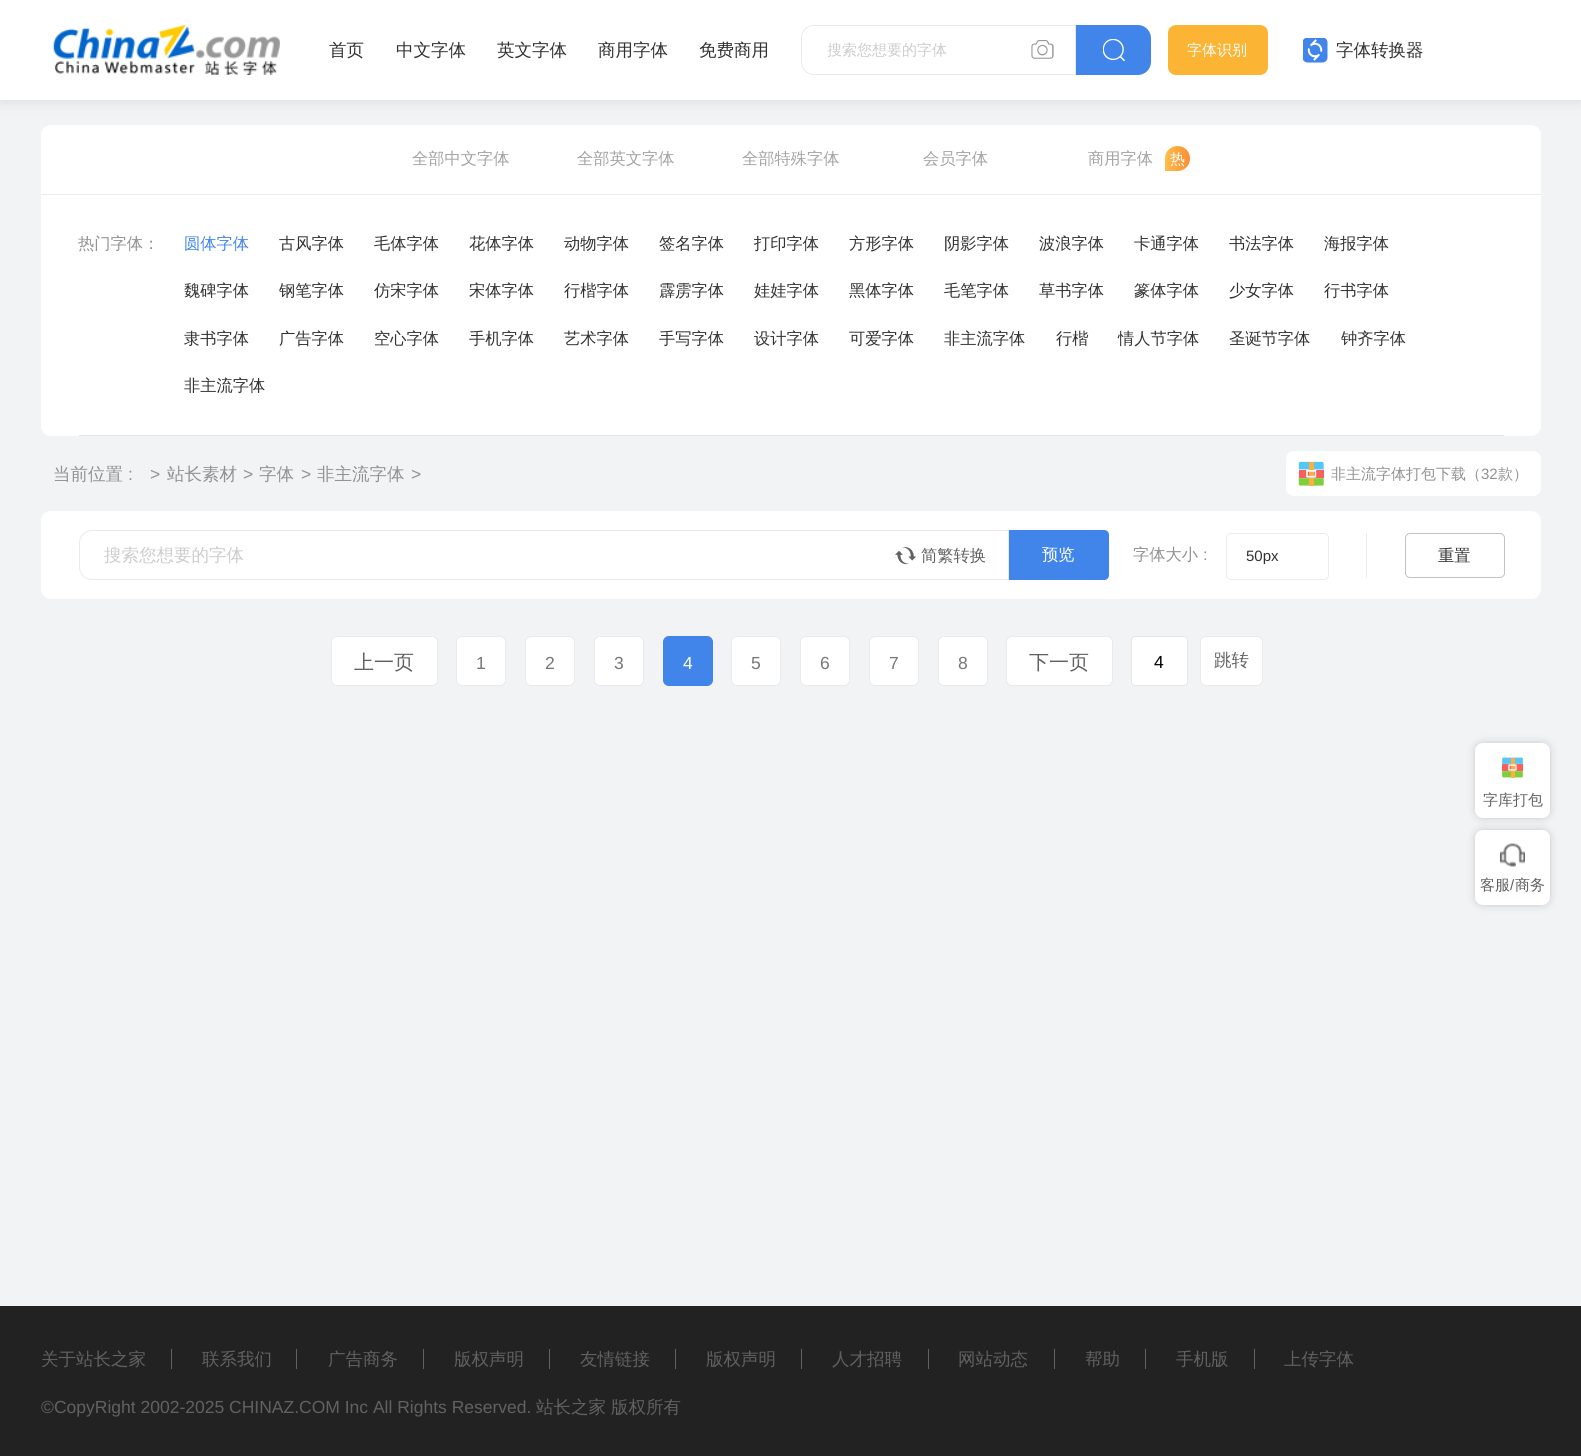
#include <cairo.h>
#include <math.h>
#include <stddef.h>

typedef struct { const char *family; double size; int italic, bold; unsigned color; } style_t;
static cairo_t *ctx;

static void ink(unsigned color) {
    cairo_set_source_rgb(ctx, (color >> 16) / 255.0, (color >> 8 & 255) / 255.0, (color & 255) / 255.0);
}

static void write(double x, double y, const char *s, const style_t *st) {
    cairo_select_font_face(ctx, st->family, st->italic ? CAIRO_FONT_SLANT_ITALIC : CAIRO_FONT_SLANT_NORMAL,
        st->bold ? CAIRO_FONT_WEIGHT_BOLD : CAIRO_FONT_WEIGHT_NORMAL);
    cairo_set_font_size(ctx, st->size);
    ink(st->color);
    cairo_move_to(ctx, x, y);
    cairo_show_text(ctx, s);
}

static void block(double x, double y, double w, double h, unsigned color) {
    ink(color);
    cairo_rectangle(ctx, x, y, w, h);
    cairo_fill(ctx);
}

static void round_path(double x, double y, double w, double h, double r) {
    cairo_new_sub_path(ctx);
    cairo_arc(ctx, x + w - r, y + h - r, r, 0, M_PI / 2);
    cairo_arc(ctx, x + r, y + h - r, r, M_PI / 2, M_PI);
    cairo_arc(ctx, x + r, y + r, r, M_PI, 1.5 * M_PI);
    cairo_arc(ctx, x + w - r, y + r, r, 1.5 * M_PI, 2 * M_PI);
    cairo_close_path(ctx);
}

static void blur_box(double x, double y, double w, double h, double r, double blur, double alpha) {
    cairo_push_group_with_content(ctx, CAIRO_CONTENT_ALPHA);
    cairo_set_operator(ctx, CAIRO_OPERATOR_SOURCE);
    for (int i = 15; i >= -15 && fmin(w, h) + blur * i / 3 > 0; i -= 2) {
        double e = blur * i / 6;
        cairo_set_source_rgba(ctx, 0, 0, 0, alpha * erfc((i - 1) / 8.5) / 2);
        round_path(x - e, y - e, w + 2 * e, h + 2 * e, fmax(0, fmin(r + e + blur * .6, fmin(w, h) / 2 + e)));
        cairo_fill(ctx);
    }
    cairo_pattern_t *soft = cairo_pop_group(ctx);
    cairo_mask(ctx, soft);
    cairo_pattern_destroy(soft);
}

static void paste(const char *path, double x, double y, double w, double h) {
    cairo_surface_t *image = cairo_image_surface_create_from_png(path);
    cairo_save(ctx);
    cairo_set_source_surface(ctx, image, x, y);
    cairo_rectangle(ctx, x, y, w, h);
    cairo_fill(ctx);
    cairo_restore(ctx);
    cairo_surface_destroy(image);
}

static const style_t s1 = {"WenQuanYi Zen Hei Medium", 17.5, 0, 0, 0x313131};
static const style_t s2 = {"WenQuanYi Zen Hei Medium", 15, 0, 0, 0xcccccc};
static const style_t s3 = {"WenQuanYi Zen Hei Medium", 15, 0, 0, 0xffffff};
static const style_t s4 = {"WenQuanYi Zen Hei Medium", 16.25, 0, 0, 0xa3a3a3};
static const style_t s5 = {"WenQuanYi Zen Hei Medium", 16.25, 0, 0, 0x919191};
static const style_t s6 = {"WenQuanYi Zen Hei Medium", 16.25, 0, 0, 0x4185eb};
static const style_t s7 = {"WenQuanYi Zen Hei Medium", 16.25, 0, 0, 0x313131};
static const style_t s8 = {"WenQuanYi Zen Hei Medium", 17.5, 0, 0, 0x919191};
static const style_t s9 = {"Liberation Sans", 17.5, 0, 0, 0x919191};
static const style_t s10 = {"WenQuanYi Zen Hei Medium", 15, 0, 0, 0x919191};
static const style_t s11 = {"Liberation Sans", 15, 0, 0, 0x919191};
static const style_t s12 = {"WenQuanYi Zen Hei Medium", 17.5, 0, 0, 0xcccccc};
static const style_t s13 = {"WenQuanYi Zen Hei Medium", 16.25, 0, 0, 0x616161};
static const style_t s14 = {"WenQuanYi Zen Hei Medium", 16.25, 0, 0, 0xffffff};
static const style_t s15 = {"Liberation Sans", 16.25, 0, 0, 0x919191};
static const style_t s16 = {"Liberation Sans", 15, 0, 0, 0x313131};
static const style_t s17 = {"WenQuanYi Zen Hei Medium", 20, 0, 0, 0x616161};
static const style_t s18 = {"Liberation Sans", 17.5, 0, 0, 0x777777};
static const style_t s19 = {"Liberation Sans", 17.5, 0, 0, 0xffffff};
static const style_t s20 = {"Liberation Sans", 17.5, 0, 0, 0x000000};
static const style_t s21 = {"WenQuanYi Zen Hei Medium", 17.5, 0, 0, 0x616161};
static const style_t s22 = {"WenQuanYi Zen Hei Medium", 15, 0, 0, 0x616161};
static const style_t s23 = {"Liberation Sans", 15, 0, 0, 0x616161};
static const style_t s24 = {"Liberation Sans", 17.5, 0, 0, 0x616161};

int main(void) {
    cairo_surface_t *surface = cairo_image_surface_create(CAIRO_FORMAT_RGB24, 1581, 1456);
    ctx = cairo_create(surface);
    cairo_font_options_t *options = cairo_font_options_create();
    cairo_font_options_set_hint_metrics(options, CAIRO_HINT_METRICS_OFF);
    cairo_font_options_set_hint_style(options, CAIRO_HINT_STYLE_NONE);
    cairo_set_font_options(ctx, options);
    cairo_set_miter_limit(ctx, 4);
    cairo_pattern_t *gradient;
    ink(0xf1f3f5);
    cairo_paint(ctx);
    ink(0xcccccc);
    blur_box(0, 3, 1581, 100, 0, 6, 0.5);
    block(0, 0, 1581, 100, 0xffffff);
    paste("pic1.png", 53, 25, 227, 50);
    write(329, 56, "首页", &s1);
    write(396, 56, "中文字体", &s1);
    write(497, 56, "英文字体", &s1);
    write(598, 56, "商用字体", &s1);
    write(699, 56, "免费商用", &s1);
    cairo_new_path(ctx);
    cairo_move_to(ctx, 814, 25.5);
    cairo_line_to(ctx, 1075.5, 25.5);
    cairo_line_to(ctx, 1075.5, 74.5);
    cairo_line_to(ctx, 814, 74.5);
    cairo_curve_to(ctx, 807, 74.5, 801.5, 69, 801.5, 62);
    cairo_line_to(ctx, 801.5, 38);
    cairo_curve_to(ctx, 801.5, 31, 807, 25.5, 814, 25.5);
    cairo_close_path(ctx);
    ink(0xe8eaec);
    cairo_set_line_width(ctx, 1);
    cairo_stroke(ctx);
    cairo_save(ctx);
    cairo_rectangle(ctx, 828, 40, 247, 21);
    cairo_clip(ctx);
    write(827, 55, "搜索您想要的字体", &s2);
    cairo_restore(ctx);
    paste("pic2.png", 1031, 40, 23, 19);
    ink(0x4185eb);
    cairo_new_path(ctx);
    cairo_move_to(ctx, 1076, 25);
    cairo_line_to(ctx, 1138, 25);
    cairo_curve_to(ctx, 1145, 25, 1151, 31, 1151, 38);
    cairo_line_to(ctx, 1151, 62);
    cairo_curve_to(ctx, 1151, 69, 1145, 75, 1138, 75);
    cairo_line_to(ctx, 1076, 75);
    cairo_close_path(ctx);
    cairo_fill(ctx);
    paste("pic3.png", 1103, 39, 22, 22);
    ink(0xfbb434);
    round_path(1168, 25, 100, 50, 8);
    cairo_fill(ctx);
    write(1187, 55, "字体识别", &s3);
    paste("pic4.png", 1303, 38, 25, 25);
    write(1336, 56, "字体转换器", &s1);
    ink(0xffffff);
    round_path(41, 125, 1500, 311, 10);
    cairo_fill(ctx);
    block(41, 194, 1500, 1, 0xececec);
    write(412, 164, "全部中文字体", &s4);
    write(577, 164, "全部英文字体", &s4);
    write(742, 164, "全部特殊字体", &s4);
    write(923, 164, "会员字体", &s4);
    write(1088, 164, "商用字体", &s4);
    gradient = cairo_pattern_create_linear(1190, 159, 1165, 159);
    cairo_pattern_add_color_stop_rgba(gradient, 0, 0.984, 0.553, 0.204, 1);
    cairo_pattern_add_color_stop_rgba(gradient, 1, 1, 0.745, 0.29, 1);
    cairo_set_source(ctx, gradient);
    cairo_pattern_destroy(gradient);
    cairo_new_path(ctx);
    cairo_move_to(ctx, 1177.5, 146);
    cairo_curve_to(ctx, 1184.5, 146, 1190, 151.5, 1190, 158.5);
    cairo_curve_to(ctx, 1190, 165.5, 1184.5, 171, 1177.5, 171);
    cairo_line_to(ctx, 1165, 171);
    cairo_line_to(ctx, 1165, 158.5);
    cairo_curve_to(ctx, 1165, 151.5, 1170.5, 146, 1177.5, 146);
    cairo_close_path(ctx);
    cairo_fill(ctx);
    write(1170, 164, "热", &s3);
    block(79, 435, 1425, 1, 0xe5e6e5);
    write(78, 249, "热门字体：", &s5);
    write(184, 249, "圆体字体", &s6);
    write(279, 249, "古风字体", &s7);
    write(374, 249, "毛体字体", &s7);
    write(469, 249, "花体字体", &s7);
    write(564, 249, "动物字体", &s7);
    write(659, 249, "签名字体", &s7);
    write(754, 249, "打印字体", &s7);
    write(849, 249, "方形字体", &s7);
    write(944, 249, "阴影字体", &s7);
    write(1039, 249, "波浪字体", &s7);
    write(1134, 249, "卡通字体", &s7);
    write(1229, 249, "书法字体", &s7);
    write(1324, 249, "海报字体", &s7);
    write(184, 296, "魏碑字体", &s7);
    write(279, 296, "钢笔字体", &s7);
    write(374, 296, "仿宋字体", &s7);
    write(469, 296, "宋体字体", &s7);
    write(564, 296, "行楷字体", &s7);
    write(659, 296, "霹雳字体", &s7);
    write(754, 296, "娃娃字体", &s7);
    write(849, 296, "黑体字体", &s7);
    write(944, 296, "毛笔字体", &s7);
    write(1039, 296, "草书字体", &s7);
    write(1134, 296, "篆体字体", &s7);
    write(1229, 296, "少女字体", &s7);
    write(1324, 296, "行书字体", &s7);
    write(184, 344, "隶书字体", &s7);
    write(279, 344, "广告字体", &s7);
    write(374, 344, "空心字体", &s7);
    write(469, 344, "手机字体", &s7);
    write(564, 344, "艺术字体", &s7);
    write(659, 344, "手写字体", &s7);
    write(754, 344, "设计字体", &s7);
    write(849, 344, "可爱字体", &s7);
    write(944, 344, "非主流字体", &s7);
    write(1056, 344, "行楷", &s7);
    write(1118, 344, "情人节字体", &s7);
    write(1229, 344, "圣诞节字体", &s7);
    write(1341, 344, "钟齐字体", &s7);
    write(184, 391, "非主流字体", &s7);
    write(53, 480, "当前位置", &s8);
    write(128, 480, ":", &s9);
    write(150, 480, ">", &s9);
    write(167, 480, "站长素材", &s8);
    write(243, 480, ">", &s9);
    write(259, 480, "字体", &s8);
    write(301, 480, ">", &s9);
    write(317, 480, "非主流字体", &s8);
    write(411, 480, ">", &s9);
    ink(0xffffff);
    round_path(1286, 451, 255, 45, 8);
    cairo_fill(ctx);
    paste("pic5.png", 1298, 461, 26, 25);
    write(1331, 479, "非主流字体打包下载（", &s10);
    write(1481, 479, "32", &s11);
    write(1498, 479, "款）", &s10);
    ink(0xffffff);
    round_path(41, 511, 1500, 88, 10);
    cairo_fill(ctx);
    cairo_new_path(ctx);
    cairo_move_to(ctx, 92, 530.5);
    cairo_line_to(ctx, 1008.5, 530.5);
    cairo_line_to(ctx, 1008.5, 579.5);
    cairo_line_to(ctx, 92, 579.5);
    cairo_curve_to(ctx, 85, 579.5, 79.5, 574, 79.5, 567);
    cairo_line_to(ctx, 79.5, 543);
    cairo_curve_to(ctx, 79.5, 536, 85, 530.5, 92, 530.5);
    cairo_close_path(ctx);
    ink(0xe8eaec);
    cairo_stroke(ctx);
    write(104, 561, "搜索您想要的字体", &s12);
    paste("pic6.png", 895, 547, 21, 18);
    write(921, 561, "简繁转换", &s13);
    ink(0x4185eb);
    cairo_new_path(ctx);
    cairo_move_to(ctx, 1009, 530);
    cairo_line_to(ctx, 1104, 530);
    cairo_curve_to(ctx, 1107, 530, 1109, 532, 1109, 535);
    cairo_line_to(ctx, 1109, 575);
    cairo_curve_to(ctx, 1109, 578, 1107, 580, 1104, 580);
    cairo_line_to(ctx, 1009, 580);
    cairo_close_path(ctx);
    cairo_fill(ctx);
    write(1042, 560, "预览", &s14);
    write(1133, 560, "字体大小", &s5);
    write(1203, 560, ":", &s15);
    round_path(1226.5, 533.5, 102, 46, 4.5);
    ink(0xececec);
    cairo_stroke(ctx);
    write(1246, 561, "50px", &s16);
    block(1366, 533, 1, 45, 0xececec);
    round_path(1405.5, 533.5, 99, 44, 4.5);
    ink(0xc2c2c2);
    cairo_stroke(ctx);
    write(1438, 561, "重置", &s7);
    ink(0xffffff);
    round_path(331.5, 636.5, 106, 49, 5.5);
    cairo_fill_preserve(ctx);
    ink(0xe8eaec);
    cairo_stroke(ctx);
    write(354, 669, "上一页", &s17);
    ink(0xffffff);
    round_path(456.5, 636.5, 49, 49, 5.5);
    cairo_fill_preserve(ctx);
    ink(0xe8eaec);
    cairo_stroke(ctx);
    write(476, 669, "1", &s18);
    ink(0xffffff);
    round_path(525.5, 636.5, 49, 49, 5.5);
    cairo_fill_preserve(ctx);
    ink(0xe8eaec);
    cairo_stroke(ctx);
    write(545, 669, "2", &s18);
    ink(0xffffff);
    round_path(594.5, 636.5, 49, 49, 5.5);
    cairo_fill_preserve(ctx);
    ink(0xe8eaec);
    cairo_stroke(ctx);
    write(614, 669, "3", &s18);
    ink(0x4185eb);
    round_path(663.5, 636.5, 49, 49, 5.5);
    cairo_fill_preserve(ctx);
    cairo_stroke(ctx);
    write(683, 669, "4", &s19);
    round_path(731.5, 636.5, 49, 49, 5.5);
    cairo_fill_preserve(ctx);
    ink(0xe8eaec);
    cairo_stroke(ctx);
    write(751, 669, "5", &s18);
    ink(0xffffff);
    round_path(800.5, 636.5, 49, 49, 5.5);
    cairo_fill_preserve(ctx);
    ink(0xe8eaec);
    cairo_stroke(ctx);
    write(820, 669, "6", &s18);
    ink(0xffffff);
    round_path(869.5, 636.5, 49, 49, 5.5);
    cairo_fill_preserve(ctx);
    ink(0xe8eaec);
    cairo_stroke(ctx);
    write(889, 669, "7", &s18);
    ink(0xffffff);
    round_path(938.5, 636.5, 49, 49, 5.5);
    cairo_fill_preserve(ctx);
    ink(0xe8eaec);
    cairo_stroke(ctx);
    write(958, 669, "8", &s18);
    ink(0xffffff);
    round_path(1006.5, 636.5, 106, 49, 5.5);
    cairo_fill_preserve(ctx);
    ink(0xe8eaec);
    cairo_stroke(ctx);
    write(1029, 669, "下一页", &s17);
    ink(0xffffff);
    round_path(1131.5, 636.5, 56, 49, 3.5);
    cairo_fill_preserve(ctx);
    ink(0xe6e6e6);
    cairo_stroke(ctx);
    write(1154, 668, "4", &s20);
    ink(0xffffff);
    round_path(1200.5, 636.5, 62, 49, 5.5);
    cairo_fill_preserve(ctx);
    ink(0xe8eaec);
    cairo_stroke(ctx);
    write(1214, 666, "跳转", &s21);
    ink(0x200f0a);
    blur_box(1475, 743, 75, 75, 8, 4, 0.2);
    ink(0xffffff);
    round_path(1475, 743, 75, 75, 8);
    cairo_fill(ctx);
    paste("pic7.png", 1502, 757, 21, 21);
    write(1483, 805, "字库打包", &s22);
    ink(0x200f0a);
    blur_box(1475, 830, 75, 75, 8, 4, 0.2);
    ink(0xffffff);
    round_path(1475, 830, 75, 75, 8);
    cairo_fill(ctx);
    paste("pic8.png", 1500, 843, 25, 24);
    write(1480, 890, "客服", &s22);
    write(1510, 890, "/", &s23);
    write(1515, 890, "商务", &s22);
    block(0, 1306, 1581, 150, 0x222222);
    write(41, 1365, "关于站长之家", &s21);
    block(171, 1349, 1, 20, 0x616161);
    write(202, 1365, "联系我们", &s21);
    block(296, 1349, 1, 20, 0x616161);
    write(328, 1365, "广告商务", &s21);
    block(423, 1349, 1, 20, 0x616161);
    write(454, 1365, "版权声明", &s21);
    block(549, 1349, 1, 20, 0x616161);
    write(580, 1365, "友情链接", &s21);
    block(675, 1349, 1, 20, 0x616161);
    write(706, 1365, "版权声明", &s21);
    block(801, 1349, 1, 20, 0x616161);
    write(832, 1365, "人才招聘", &s21);
    block(928, 1349, 1, 20, 0x616161);
    write(958, 1365, "网站动态", &s21);
    block(1054, 1349, 1, 20, 0x616161);
    write(1085, 1365, "帮助", &s21);
    block(1145, 1349, 1, 20, 0x616161);
    write(1176, 1365, "手机版", &s21);
    block(1254, 1349, 1, 20, 0x616161);
    write(1284, 1365, "上传字体", &s21);
    write(41, 1413, "©CopyRight 2002-2025 CHINAZ.COM Inc All Rights Reserved.", &s24);
    write(536, 1413, "站长之家", &s21);
    write(611, 1413, "版权所有", &s21);
    cairo_surface_write_to_png(surface, "screenshot.png");
    cairo_font_options_destroy(options);
    cairo_destroy(ctx);
    cairo_surface_destroy(surface);
    return 0;
}
